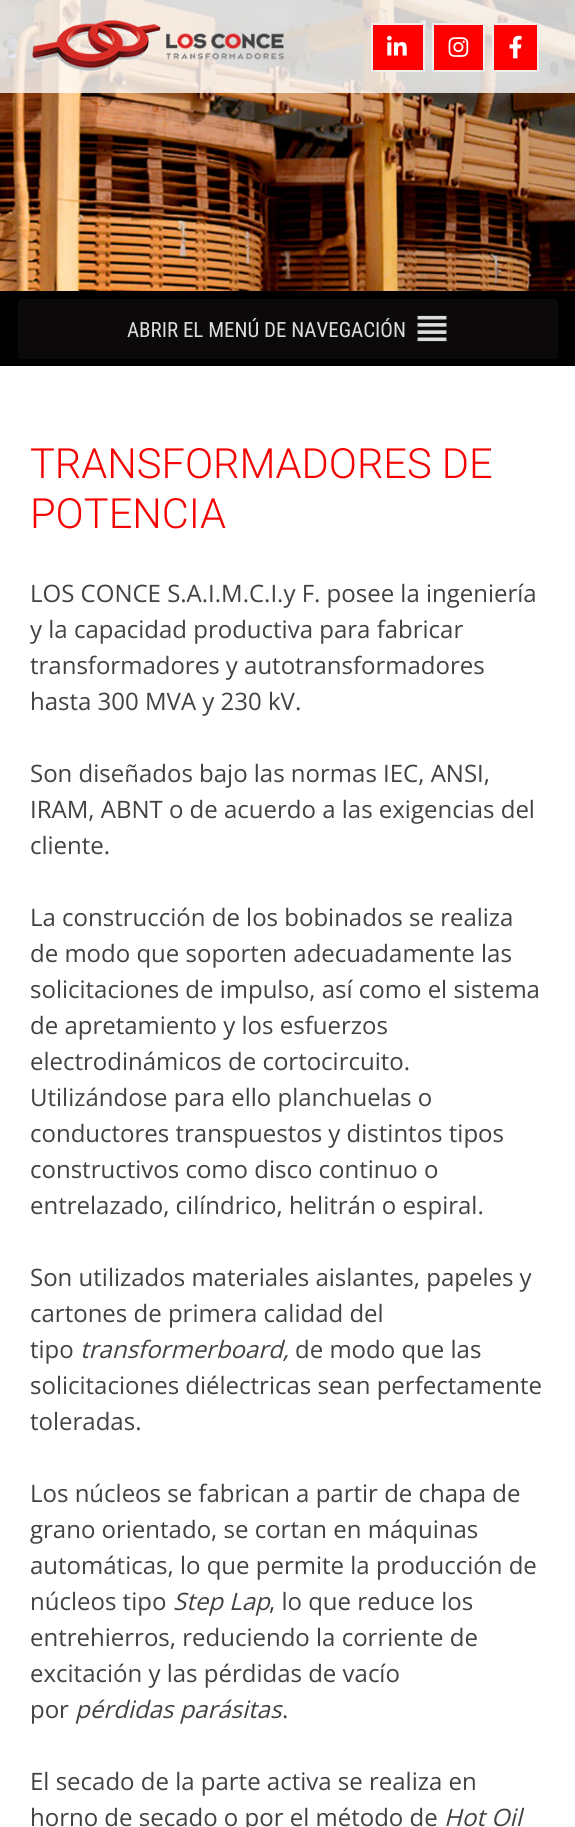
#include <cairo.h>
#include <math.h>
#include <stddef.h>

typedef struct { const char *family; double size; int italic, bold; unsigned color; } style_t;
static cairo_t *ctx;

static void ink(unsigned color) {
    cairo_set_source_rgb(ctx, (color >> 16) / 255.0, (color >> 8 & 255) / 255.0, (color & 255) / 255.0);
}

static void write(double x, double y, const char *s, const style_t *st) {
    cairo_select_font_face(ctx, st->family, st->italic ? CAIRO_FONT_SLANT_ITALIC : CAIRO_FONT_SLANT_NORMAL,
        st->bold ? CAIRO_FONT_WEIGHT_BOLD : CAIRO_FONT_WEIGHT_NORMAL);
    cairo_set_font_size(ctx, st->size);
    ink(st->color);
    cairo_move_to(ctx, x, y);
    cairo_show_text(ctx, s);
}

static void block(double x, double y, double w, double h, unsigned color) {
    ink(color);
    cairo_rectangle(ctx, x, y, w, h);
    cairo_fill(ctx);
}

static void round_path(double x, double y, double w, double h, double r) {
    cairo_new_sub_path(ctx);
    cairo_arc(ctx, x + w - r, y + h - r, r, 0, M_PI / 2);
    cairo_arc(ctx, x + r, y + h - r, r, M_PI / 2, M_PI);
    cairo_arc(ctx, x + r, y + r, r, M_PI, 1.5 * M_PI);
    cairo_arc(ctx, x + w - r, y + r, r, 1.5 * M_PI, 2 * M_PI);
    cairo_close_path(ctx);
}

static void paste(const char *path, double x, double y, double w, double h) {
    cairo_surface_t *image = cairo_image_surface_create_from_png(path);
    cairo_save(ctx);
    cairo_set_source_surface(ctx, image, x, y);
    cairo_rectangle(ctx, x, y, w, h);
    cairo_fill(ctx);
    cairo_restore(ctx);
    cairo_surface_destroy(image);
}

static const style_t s1 = {"Roboto Condensed", 21, 0, 0, 0xdddddd};
static const style_t s2 = {"Roboto Light", 41.6, 0, 0, 0xf50202};
static const style_t s3 = {"Open Sans", 24, 0, 0, 0x424242};
static const style_t s4 = {"Open Sans", 24, 1, 0, 0x424242};

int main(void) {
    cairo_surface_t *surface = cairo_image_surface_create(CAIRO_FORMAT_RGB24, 575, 1827);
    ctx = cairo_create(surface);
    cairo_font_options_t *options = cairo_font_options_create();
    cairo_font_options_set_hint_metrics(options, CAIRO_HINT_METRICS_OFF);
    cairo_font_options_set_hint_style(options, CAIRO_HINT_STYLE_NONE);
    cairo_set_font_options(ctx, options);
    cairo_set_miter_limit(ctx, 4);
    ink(0xffffff);
    cairo_paint(ctx);
    paste("pic1.png", 0, 0, 575, 291);
    cairo_set_source_rgba(ctx, 1, 1, 1, 0.8);
    cairo_rectangle(ctx, 0, 0, 575, 93);
    cairo_fill(ctx);
    paste("pic2.png", 32, 20, 252, 52);
    ink(0xff0000);
    cairo_rectangle(ctx, 372, 24, 52, 47);
    cairo_fill_preserve(ctx);
    ink(0xeeeeee);
    cairo_stroke(ctx);
    paste("pic3.png", 387, 35, 20, 21);
    ink(0xff0000);
    cairo_rectangle(ctx, 433, 24, 51, 47);
    cairo_fill_preserve(ctx);
    ink(0xeeeeee);
    cairo_stroke(ctx);
    paste("pic4.png", 448, 37, 21, 20);
    ink(0xff0000);
    cairo_rectangle(ctx, 493, 24, 45, 47);
    cairo_fill_preserve(ctx);
    ink(0xeeeeee);
    cairo_stroke(ctx);
    paste("pic5.png", 509, 35, 13, 24);
    block(0, 291, 575, 75, 0x000000);
    ink(0x0b090a);
    round_path(18, 299, 540, 60, 3);
    cairo_fill(ctx);
    write(127, 337, "ABRIR EL MENÚ DE NAVEGACIÓN", &s1);
    paste("pic6.png", 417, 315, 30, 27);
    write(30, 478, "TRANSFORMADORES DE", &s2);
    write(30, 528, "POTENCIA", &s2);
    write(30, 602, "LOS CONCE S.A.I.M.C.I.y F. posee la ingeniería", &s3);
    write(30, 638, "y la capacidad productiva para fabricar", &s3);
    write(30, 674, "transformadores y autotransformadores", &s3);
    write(30, 710, "hasta 300 MVA y 230 kV.", &s3);
    write(30, 782, "Son diseñados bajo las normas IEC, ANSI,", &s3);
    write(30, 818, "IRAM, ABNT o de acuerdo a las exigencias del", &s3);
    write(30, 854, "cliente.", &s3);
    write(30, 926, "La construcción de los bobinados se realiza", &s3);
    write(30, 962, "de modo que soporten adecuadamente las", &s3);
    write(30, 998, "solicitaciones de impulso, así como el sistema", &s3);
    write(30, 1034, "de apretamiento y los esfuerzos", &s3);
    write(30, 1070, "electrodinámicos de cortocircuito.", &s3);
    write(30, 1106, "Utilizándose para ello planchuelas o", &s3);
    write(30, 1142, "conductores transpuestos y distintos tipos", &s3);
    write(30, 1178, "constructivos como disco continuo o", &s3);
    write(30, 1214, "entrelazado, cilíndrico, helitrán o espiral.", &s3);
    write(30, 1286, "Son utilizados materiales aislantes, papeles y", &s3);
    write(30, 1322, "cartones de primera calidad del", &s3);
    write(30, 1358, "tipo", &s3);
    write(80, 1358, "transformerboard,", &s4);
    write(295, 1358, "de modo que las", &s3);
    write(30, 1394, "solicitaciones diélectricas sean perfectamente", &s3);
    write(30, 1430, "toleradas.", &s3);
    write(30, 1502, "Los núcleos se fabrican a partir de chapa de", &s3);
    write(30, 1538, "grano orientado, se cortan en máquinas", &s3);
    write(30, 1574, "automáticas, lo que permite la producción de", &s3);
    write(30, 1610, "núcleos tipo", &s3);
    write(173, 1610, "Step Lap", &s4);
    write(269, 1610, ", lo que reduce los", &s3);
    write(30, 1646, "entrehierros, reduciendo la corriente de", &s3);
    write(30, 1682, "excitación y las pérdidas de vacío", &s3);
    write(30, 1718, "por", &s3);
    write(75, 1718, "pérdidas parásitas", &s4);
    write(282, 1718, ".", &s3);
    write(30, 1790, "El secado de la parte activa se realiza en", &s3);
    write(30, 1826, "horno de secado o por el método de", &s3);
    write(444, 1826, "Hot Oil", &s4);
    cairo_surface_write_to_png(surface, "screenshot.png");
    cairo_font_options_destroy(options);
    cairo_destroy(ctx);
    cairo_surface_destroy(surface);
    return 0;
}
